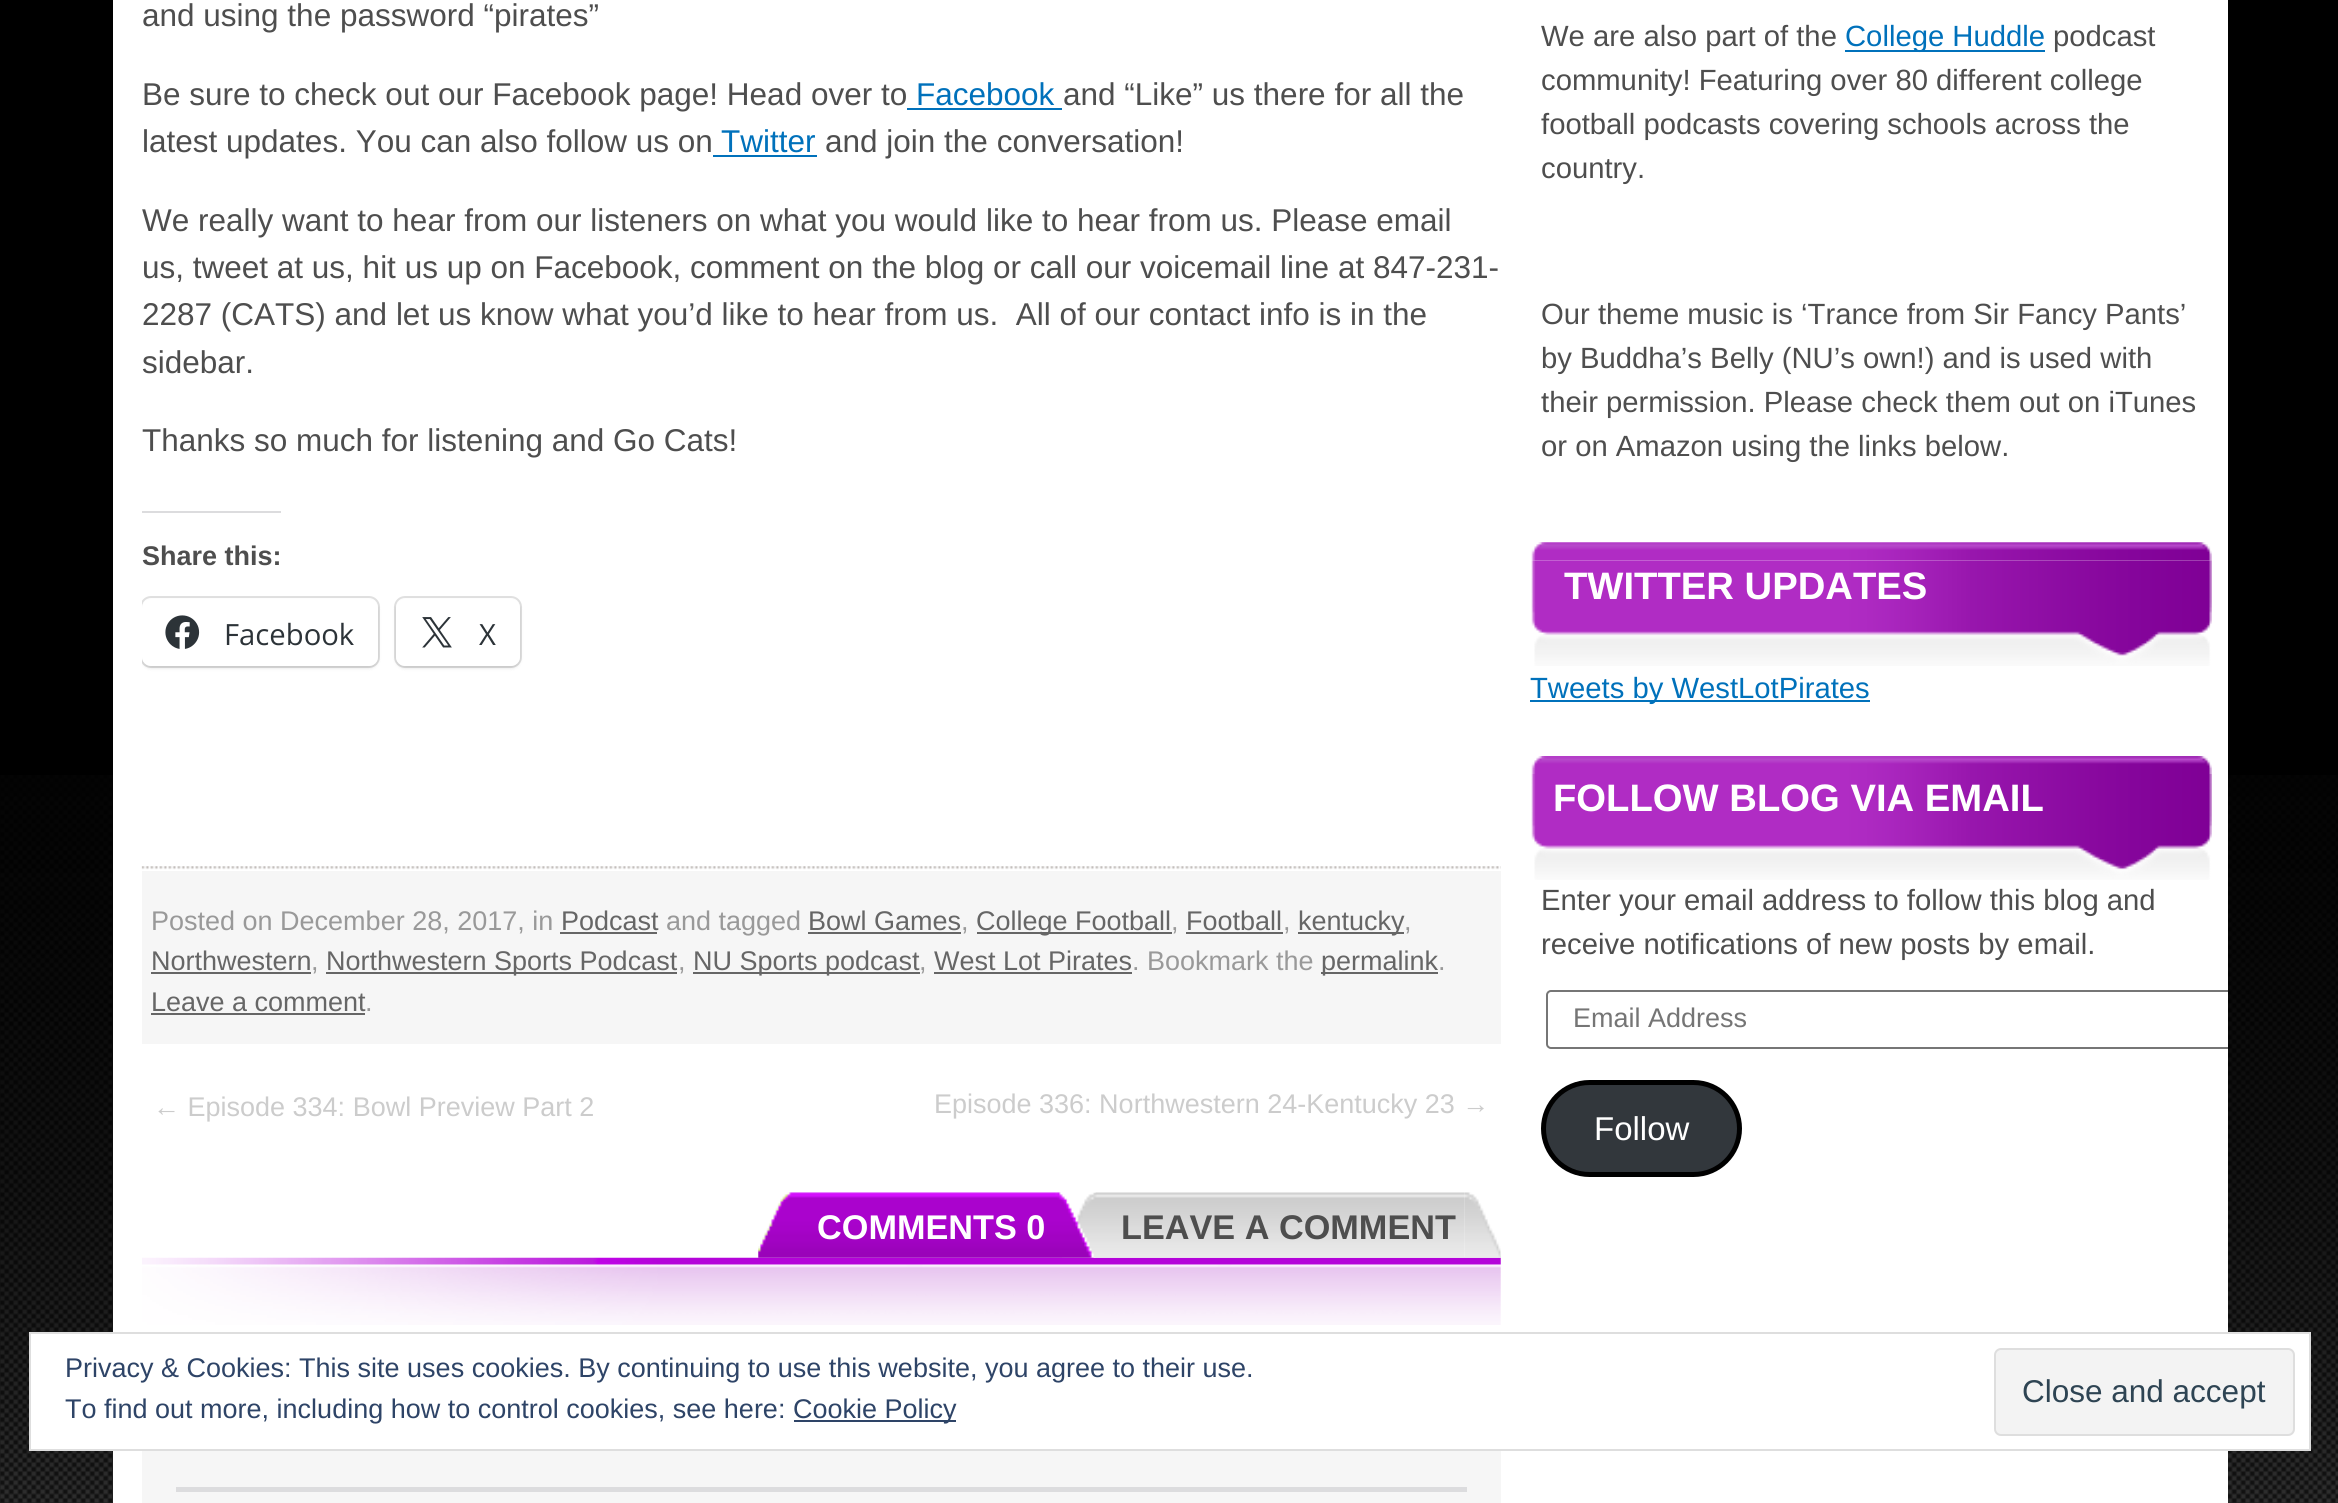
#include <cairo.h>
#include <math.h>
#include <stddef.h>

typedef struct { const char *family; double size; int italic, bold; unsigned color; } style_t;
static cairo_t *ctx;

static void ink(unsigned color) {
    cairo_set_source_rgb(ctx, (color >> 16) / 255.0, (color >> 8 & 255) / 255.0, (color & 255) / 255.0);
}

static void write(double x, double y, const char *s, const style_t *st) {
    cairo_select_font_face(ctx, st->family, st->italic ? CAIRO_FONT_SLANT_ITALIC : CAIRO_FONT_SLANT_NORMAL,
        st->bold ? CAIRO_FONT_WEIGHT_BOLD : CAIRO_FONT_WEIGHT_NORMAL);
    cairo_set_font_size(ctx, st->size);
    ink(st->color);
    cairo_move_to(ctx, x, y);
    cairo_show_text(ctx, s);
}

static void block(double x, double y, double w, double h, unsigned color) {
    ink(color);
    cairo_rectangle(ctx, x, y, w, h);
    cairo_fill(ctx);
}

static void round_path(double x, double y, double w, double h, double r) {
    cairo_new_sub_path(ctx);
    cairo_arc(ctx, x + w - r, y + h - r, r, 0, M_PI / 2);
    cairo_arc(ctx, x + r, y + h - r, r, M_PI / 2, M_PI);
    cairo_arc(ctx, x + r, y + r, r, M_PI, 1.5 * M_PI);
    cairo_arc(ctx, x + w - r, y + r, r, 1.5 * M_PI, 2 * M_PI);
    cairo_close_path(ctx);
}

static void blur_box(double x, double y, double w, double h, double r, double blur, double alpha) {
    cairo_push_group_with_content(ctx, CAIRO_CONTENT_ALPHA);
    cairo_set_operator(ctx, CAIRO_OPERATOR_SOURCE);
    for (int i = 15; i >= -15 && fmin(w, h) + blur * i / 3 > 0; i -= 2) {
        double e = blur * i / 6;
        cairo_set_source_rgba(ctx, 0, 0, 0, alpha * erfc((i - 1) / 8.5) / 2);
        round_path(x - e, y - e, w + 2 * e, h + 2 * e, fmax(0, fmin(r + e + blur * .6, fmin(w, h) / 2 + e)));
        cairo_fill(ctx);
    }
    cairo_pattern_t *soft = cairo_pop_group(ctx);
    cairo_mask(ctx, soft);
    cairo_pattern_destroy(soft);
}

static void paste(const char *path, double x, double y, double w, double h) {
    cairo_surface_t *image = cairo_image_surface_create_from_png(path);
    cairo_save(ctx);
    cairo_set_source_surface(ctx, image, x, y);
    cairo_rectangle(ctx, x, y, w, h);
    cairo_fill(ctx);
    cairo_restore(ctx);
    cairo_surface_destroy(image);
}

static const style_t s1 = {"Liberation Sans", 31.5, 0, 0, 0x4e4e4e};
static const style_t s2 = {"Liberation Sans", 31.5, 0, 0, 0x0071bb};
static const style_t s3 = {"Liberation Sans", 27, 0, 1, 0x4e4e4e};
static const style_t s4 = {"Open Sans", 29.25, 0, 0, 0x2c3338};
static const style_t s5 = {"Liberation Sans", 27, 0, 0, 0x999999};
static const style_t s6 = {"Liberation Sans", 27, 0, 0, 0x666666};
static const style_t s7 = {"Liberation Sans", 27, 0, 0, 0xcccccc};
static const style_t s8 = {"Liberation Sans", 34.25, 0, 1, 0xffffff};
static const style_t s9 = {"Liberation Sans", 34.25, 0, 1, 0x4e4e4e};
static const style_t s10 = {"Liberation Sans", 29.25, 0, 0, 0x4e4e4e};
static const style_t s11 = {"Liberation Sans", 29.25, 0, 0, 0x0071bb};
static const style_t s12 = {"Liberation Sans", 38.25, 0, 1, 0xffffff};
static const style_t s13 = {"Liberation Sans", 27, 0, 0, 0x757575};
static const style_t s14 = {"Liberation Sans", 33, 0, 0, 0xffffff};
static const style_t s15 = {"Liberation Sans", 27, 0, 0, 0x2e4467};
static const style_t s16 = {"Liberation Sans", 31.5, 0, 0, 0x2e4453};

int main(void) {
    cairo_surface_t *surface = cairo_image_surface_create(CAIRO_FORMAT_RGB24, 2338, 1503);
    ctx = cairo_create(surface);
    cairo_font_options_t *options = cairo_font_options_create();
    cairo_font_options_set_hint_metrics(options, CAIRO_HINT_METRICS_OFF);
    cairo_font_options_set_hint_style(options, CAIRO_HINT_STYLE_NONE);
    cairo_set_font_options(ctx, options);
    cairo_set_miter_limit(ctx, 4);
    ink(0x000000);
    cairo_paint(ctx);
    paste("pic1.png", 0, 775, 2338, 728);
    block(113, 0, 2115, 1503, 0xffffff);
    paste("pic2.png", 141, 866, 1360, 4);
    write(142, 26, "and using the password “pirates”", &s1);
    write(142, 105, "Be sure to check out our Facebook page! Head over to", &s1);
    write(916, 105, "Facebook", &s2);
    block(907, 108, 155, 2, 0x0071bb);
    write(1063, 105, "and “Like” us there for all the", &s1);
    write(142, 152, "latest updates. You can also follow us on", &s1);
    write(721, 152, "Twitter", &s2);
    block(713, 155, 104, 2, 0x0071bb);
    write(825, 152, "and join the conversation!", &s1);
    write(142, 231, "We really want to hear from our listeners on what you would like to hear from us. Please email", &s1);
    write(142, 278, "us, tweet at us, hit us up on Facebook, comment on the blog or call our voicemail line at 847-231-", &s1);
    write(142, 325, "2287 (CATS) and let us know what you’d like to hear from us.  All of our contact info is in the", &s1);
    write(142, 373, "sidebar.", &s1);
    write(142, 451, "Thanks so much for listening and Go Cats!", &s1);
    block(142, 511, 139, 2, 0xdcdcde);
    write(142, 565, "Share this:", &s3);
    cairo_save(ctx);
    cairo_rectangle(ctx, 142, 0, 1359, 835);
    cairo_clip(ctx);
    round_path(141, 597, 238, 70, 10);
    ink(0xe0e0e0);
    cairo_stroke(ctx);
    cairo_restore(ctx);
    cairo_save(ctx);
    cairo_rectangle(ctx, 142, 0, 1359, 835);
    cairo_clip(ctx);
    ink(0x000000);
    blur_box(142, 601, 236, 67, 9, 2, 0.12);
    cairo_restore(ctx);
    ink(0xffffff);
    round_path(142, 599, 236, 67, 9);
    cairo_fill(ctx);
    paste("pic3.png", 165, 615, 35, 34);
    write(224, 645, "Facebook", &s4);
    round_path(395, 597, 126, 70, 10);
    ink(0xe0e0e0);
    cairo_stroke(ctx);
    ink(0x000000);
    blur_box(396, 601, 124, 67, 9, 2, 0.12);
    ink(0xffffff);
    round_path(396, 599, 124, 67, 9);
    cairo_fill(ctx);
    paste("pic4.png", 422, 617, 30, 31);
    write(479, 645, "X", &s4);
    block(142, 871, 1359, 173, 0xf6f6f6);
    write(151, 930, "Posted on December 28, 2017, in", &s5);
    write(561, 930, "Podcast", &s6);
    block(560, 932, 97, 2, 0x666666);
    write(666, 930, "and tagged", &s5);
    write(808, 930, "Bowl Games", &s6);
    block(808, 932, 153, 2, 0x666666);
    write(961, 930, ",", &s5);
    block(977, 932, 195, 2, 0x666666);
    write(976, 930, "College Football", &s6);
    write(1171, 930, ",", &s5);
    write(1186, 930, "Football", &s6);
    block(1186, 932, 97, 2, 0x666666);
    write(1283, 930, ",", &s5);
    block(1298, 932, 106, 2, 0x666666);
    write(1298, 930, "kentucky", &s6);
    write(1404, 930, ",", &s5);
    write(151, 970, "Northwestern", &s6);
    block(151, 972, 160, 2, 0x666666);
    write(311, 970, ",", &s5);
    block(326, 972, 351, 2, 0x666666);
    write(326, 970, "Northwestern Sports Podcast", &s6);
    write(678, 970, ",", &s5);
    block(693, 972, 227, 2, 0x666666);
    write(693, 970, "NU Sports podcast", &s6);
    write(919, 970, ",", &s5);
    write(934, 970, "West Lot Pirates", &s6);
    block(934, 972, 198, 2, 0x666666);
    write(1132, 970, ". Bookmark the", &s5);
    block(1321, 972, 117, 2, 0x666666);
    write(1321, 970, "permalink", &s6);
    write(1438, 970, ".", &s5);
    write(151, 1011, "Leave a comment", &s6);
    block(151, 1013, 214, 2, 0x666666);
    write(365, 1011, ".", &s5);
    write(153, 1116, "← Episode 334: Bowl Preview Part 2", &s7);
    write(934, 1113, "Episode 336: Northwestern 24-Kentucky 23 →", &s7);
    paste("pic5.png", 142, 1257, 1359, 68);
    paste("pic8.png", 1464, 1192, 37, 66);
    paste("pic9.png", 1062, 1192, 403, 66);
    paste("pic6.png", 1053, 1192, 43, 66);
    paste("pic7.png", 758, 1192, 295, 66);
    write(817, 1239, "COMMENTS 0", &s8);
    write(1121, 1239, "LEAVE A COMMENT", &s9);
    block(142, 1451, 1359, 52, 0xf6f6f6);
    block(176, 1487, 1291, 5, 0xdcdcde);
    write(1541, 46, "We are also part of the", &s10);
    block(1845, 50, 200, 2, 0x0071bb);
    write(1845, 46, "College Huddle", &s11);
    write(2053, 46, "podcast", &s10);
    write(1541, 90, "community! Featuring over 80 different college", &s10);
    write(1541, 134, "football podcasts covering schools across the", &s10);
    write(1541, 178, "country.", &s10);
    write(1541, 324, "Our theme music is ‘Trance from Sir Fancy Pants’", &s10);
    write(1541, 368, "by Buddha’s Belly (NU’s own!) and is used with", &s10);
    write(1541, 412, "their permission. Please check them out on iTunes", &s10);
    write(1541, 456, "or on Amazon using the links below.", &s10);
    paste("pic10.png", 1531, 542, 681, 18);
    paste("pic11.png", 1531, 560, 681, 106);
    write(1564, 599, "TWITTER UPDATES", &s12);
    block(1530, 700, 340, 2, 0x0071bb);
    write(1530, 698, "Tweets by WestLotPirates", &s11);
    paste("pic12.png", 1531, 756, 681, 18);
    paste("pic13.png", 1531, 774, 681, 106);
    write(1553, 811, "FOLLOW BLOG VIA EMAIL", &s12);
    write(1541, 910, "Enter your email address to follow this blog and", &s10);
    write(1541, 954, "receive notifications of new posts by email.", &s10);
    cairo_save(ctx);
    cairo_rectangle(ctx, 1530, 0, 698, 1323);
    cairo_clip(ctx);
    round_path(1547, 991, 689, 57, 4);
    ink(0x767676);
    cairo_stroke(ctx);
    cairo_restore(ctx);
    write(1573, 1027, "Email Address", &s13);
    ink(0x32373c);
    round_path(1543.5, 1082.5, 196, 92, 46);
    cairo_fill_preserve(ctx);
    ink(0x000000);
    cairo_set_line_width(ctx, 5);
    cairo_stroke(ctx);
    write(1594, 1140, "Follow", &s14);
    cairo_rectangle(ctx, 30, 1333, 2280, 117);
    cairo_fill_preserve(ctx);
    ink(0xdedede);
    cairo_set_line_width(ctx, 2);
    cairo_stroke(ctx);
    write(65, 1377, "Privacy & Cookies: This site uses cookies. By continuing to use this website, you agree to their use.", &s15);
    write(65, 1418, "To find out more, including how to control cookies, see here:", &s15);
    block(794, 1420, 162, 2, 0x2e4467);
    write(793, 1418, "Cookie Policy", &s15);
    ink(0xf3f3f3);
    round_path(1995, 1349, 299, 86, 6);
    cairo_fill_preserve(ctx);
    ink(0xdedede);
    cairo_stroke(ctx);
    write(2022, 1402, "Close and accept", &s16);
    cairo_surface_write_to_png(surface, "screenshot.png");
    cairo_font_options_destroy(options);
    cairo_destroy(ctx);
    cairo_surface_destroy(surface);
    return 0;
}
